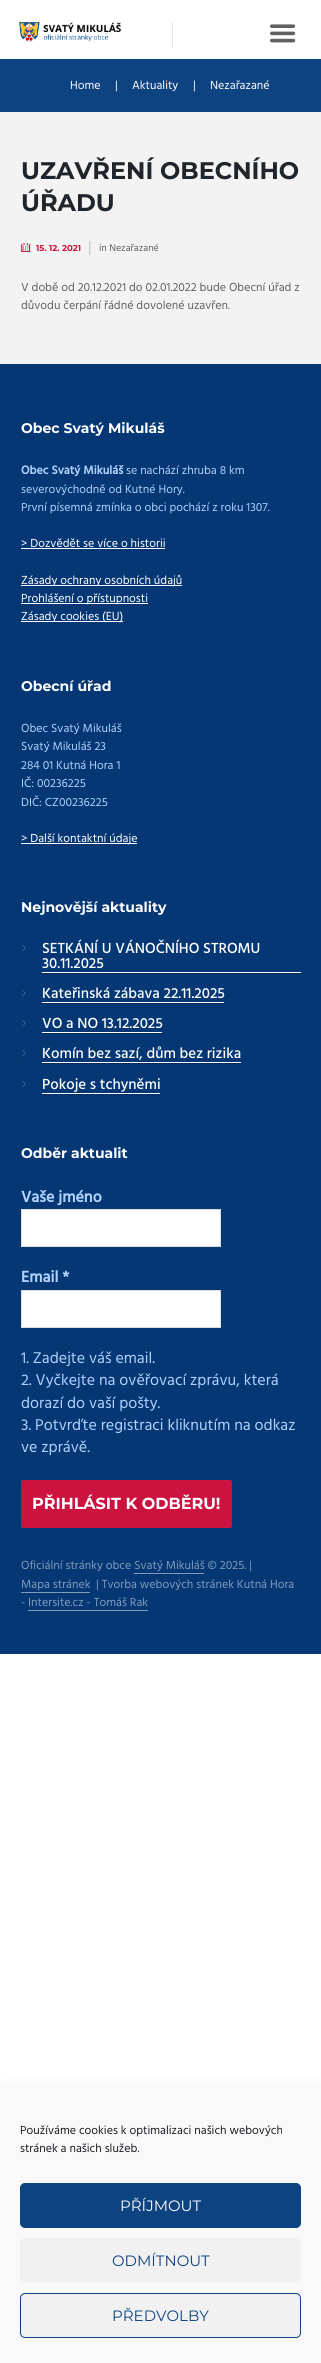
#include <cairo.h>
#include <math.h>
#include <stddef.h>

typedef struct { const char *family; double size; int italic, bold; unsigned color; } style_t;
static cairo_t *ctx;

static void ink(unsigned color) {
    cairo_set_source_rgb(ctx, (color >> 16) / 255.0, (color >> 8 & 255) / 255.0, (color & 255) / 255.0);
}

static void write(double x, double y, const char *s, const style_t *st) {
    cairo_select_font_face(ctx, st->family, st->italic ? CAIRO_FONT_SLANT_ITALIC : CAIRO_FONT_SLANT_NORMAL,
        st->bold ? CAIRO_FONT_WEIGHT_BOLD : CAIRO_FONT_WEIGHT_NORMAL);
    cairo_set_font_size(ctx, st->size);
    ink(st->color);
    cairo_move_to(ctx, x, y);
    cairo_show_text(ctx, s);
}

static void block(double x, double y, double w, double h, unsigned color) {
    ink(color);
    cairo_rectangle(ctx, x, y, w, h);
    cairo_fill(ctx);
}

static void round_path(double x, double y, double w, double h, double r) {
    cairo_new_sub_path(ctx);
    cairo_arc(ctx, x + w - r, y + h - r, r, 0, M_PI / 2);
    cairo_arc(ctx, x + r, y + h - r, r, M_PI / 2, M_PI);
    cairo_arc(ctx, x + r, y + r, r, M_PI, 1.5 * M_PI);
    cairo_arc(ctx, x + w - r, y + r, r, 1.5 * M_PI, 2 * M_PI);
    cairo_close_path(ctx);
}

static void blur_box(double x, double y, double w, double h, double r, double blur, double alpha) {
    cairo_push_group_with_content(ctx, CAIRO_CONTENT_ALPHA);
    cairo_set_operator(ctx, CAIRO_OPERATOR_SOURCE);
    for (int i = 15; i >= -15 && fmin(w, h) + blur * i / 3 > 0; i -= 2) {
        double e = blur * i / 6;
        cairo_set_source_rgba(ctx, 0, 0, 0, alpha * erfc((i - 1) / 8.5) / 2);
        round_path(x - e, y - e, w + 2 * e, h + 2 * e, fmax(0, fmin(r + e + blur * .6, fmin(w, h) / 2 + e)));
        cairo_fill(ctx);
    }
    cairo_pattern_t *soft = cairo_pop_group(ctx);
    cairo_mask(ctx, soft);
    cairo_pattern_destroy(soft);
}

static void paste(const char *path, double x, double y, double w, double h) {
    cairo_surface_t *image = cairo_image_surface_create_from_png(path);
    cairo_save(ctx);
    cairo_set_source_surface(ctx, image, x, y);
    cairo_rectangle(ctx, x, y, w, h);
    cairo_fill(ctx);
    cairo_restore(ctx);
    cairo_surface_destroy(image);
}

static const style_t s1 = {"Hind", 12, 0, 0, 0xffffff};
static const style_t s2 = {"Montserrat", 24, 0, 1, 0x1f252b};
static const style_t s3 = {"Montserrat", 8.5, 0, 1, 0xcc123f};
static const style_t s4 = {"Hind", 15, 0, 0, 0xc2c2c2};
static const style_t s5 = {"Hind", 10, 0, 0, 0x616161};
static const style_t s6 = {"Hind", 12, 0, 0, 0x616161};
static const style_t s7 = {"Montserrat", 14, 0, 1, 0xffffff};
static const style_t s8 = {"Hind", 12, 0, 1, 0xb0d2fc};
static const style_t s9 = {"Hind", 12, 0, 0, 0xb0d2fc};
static const style_t s10 = {"Hind Medium", 15, 0, 0, 0xffffff};
static const style_t s11 = {"Hind", 16, 0, 1, 0xb0d2fc};
static const style_t s12 = {"Hind", 16, 0, 0, 0xb0d2fc};
static const style_t s13 = {"Montserrat", 16, 0, 1, 0xffffff};
static const style_t s14 = {"Hind", 12, 0, 0, 0x829bba};
static const style_t s15 = {"Hind", 12, 0, 0, 0x191e23};
static const style_t s16 = {"Montserrat", 15, 0, 0, 0xffffff};
static const style_t s17 = {"Montserrat", 15, 0, 0, 0x0e4382};

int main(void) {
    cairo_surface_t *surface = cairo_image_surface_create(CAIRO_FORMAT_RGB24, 321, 2363);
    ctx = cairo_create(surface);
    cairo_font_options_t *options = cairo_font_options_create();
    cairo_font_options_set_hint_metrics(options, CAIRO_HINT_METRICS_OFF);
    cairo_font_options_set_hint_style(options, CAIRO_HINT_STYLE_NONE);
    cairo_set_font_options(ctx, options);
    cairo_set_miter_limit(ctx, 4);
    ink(0xffffff);
    cairo_paint(ctx);
    block(0, 112, 321, 252, 0xf3f3f3);
    paste("pic1.png", 19, 22, 102, 20);
    block(172, 22, 1, 26, 0xe6e6e6);
    paste("pic2.png", 270, 24, 26, 19);
    block(0, 59, 321, 53, 0x0e4382);
    write(70, 89, "Home", &s1);
    write(115, 89, "|", &s1);
    write(132, 89, "Aktuality", &s1);
    write(193, 89, "|", &s1);
    write(210, 89, "Nezařazané", &s1);
    write(21, 179, "UZAVŘENÍ OBECNÍHO", &s2);
    write(21, 211, "ÚŘADU", &s2);
    paste("pic3.png", 21, 243, 10, 9);
    write(36, 251, "15. 12. 2021", &s3);
    write(88, 252, "|", &s4);
    write(99, 251, "in Nezařazané", &s5);
    write(21, 291, "V době od 20.12.2021 do 02.01.2022 bude Obecní úřad z", &s6);
    write(21, 309, "důvodu čerpání řádné dovolené uzavřen.", &s6);
    block(0, 364, 321, 1290, 0x053775);
    write(21, 433, "Obec Svatý Mikuláš", &s7);
    write(21, 474, "Obec Svatý Mikuláš", &s8);
    write(126, 474, "se nachází zhruba 8 km", &s9);
    write(21, 493, "severovýchodně od Kutné Hory.", &s9);
    write(21, 511, "První písemná zmínka o obci pochází z roku 1307.", &s9);
    write(21, 547, "> Dozvědět se více o historii", &s1);
    block(21, 548, 144, 1, 0xffffff);
    block(21, 585, 161, 1, 0xffffff);
    write(21, 584, "Zásady ochrany osobních údajů", &s1);
    block(21, 603, 127, 1, 0xffffff);
    write(21, 602, "Prohlášení o přístupnosti", &s1);
    block(21, 621, 102, 1, 0xffffff);
    write(21, 620, "Zásady cookies (EU)", &s1);
    write(21, 691, "Obecní úřad", &s7);
    write(21, 732, "Obec Svatý Mikuláš", &s9);
    write(21, 750, "Svatý Mikuláš 23", &s9);
    write(21, 769, "284 01 Kutná Hora 1", &s9);
    write(21, 787, "IČ: 00236225", &s9);
    write(21, 806, "DIČ: CZ00236225", &s9);
    block(21, 843, 116, 1, 0xffffff);
    write(21, 842, "> Další kontaktní údaje", &s1);
    write(21, 912, "Nejnovější aktuality", &s7);
    paste("pic4.png", 22, 945, 4, 7);
    block(42, 973, 259, 1, 0x042c5e);
    block(42, 972, 259, 1, 0xffffff);
    write(42, 953, "SETKÁNÍ U VÁNOČNÍHO STROMU", &s10);
    write(42, 968, "30.11.2025", &s10);
    paste("pic4.png", 22, 990, 4, 7);
    block(42, 1003, 182, 1, 0x042c5e);
    block(42, 1002, 182, 1, 0xffffff);
    write(42, 998, "Kateřinská zábava 22.11.2025", &s10);
    paste("pic4.png", 22, 1020, 4, 7);
    block(42, 1033, 120, 1, 0x042c5e);
    block(42, 1032, 120, 1, 0xffffff);
    write(42, 1028, "VO a NO 13.12.2025", &s10);
    paste("pic4.png", 22, 1050, 4, 7);
    block(42, 1063, 199, 1, 0x042c5e);
    block(42, 1062, 199, 1, 0xffffff);
    write(42, 1058, "Komín bez sazí, dům bez rizika", &s10);
    paste("pic4.png", 22, 1081, 4, 7);
    block(42, 1094, 118, 1, 0x042c5e);
    block(42, 1093, 118, 1, 0xffffff);
    write(42, 1089, "Pokoje s tchyněmi", &s10);
    write(21, 1158, "Odběr aktualit", &s7);
    write(21, 1202, "Vaše jméno", &s11);
    ink(0xffffff);
    cairo_rectangle(ctx, 21.5, 1209.5, 199, 37);
    cairo_fill_preserve(ctx);
    ink(0xdcdcdc);
    cairo_set_line_width(ctx, 1);
    cairo_stroke(ctx);
    write(21, 1282, "Email *", &s11);
    ink(0xffffff);
    cairo_rectangle(ctx, 21.5, 1290.5, 199, 37);
    cairo_fill_preserve(ctx);
    ink(0xdcdcdc);
    cairo_stroke(ctx);
    write(21, 1363, "1. Zadejte váš email.", &s12);
    write(21, 1385, "2. Vyčkejte na ověřovací zprávu, která", &s12);
    write(21, 1408, "dorazí do vaší pošty.", &s12);
    write(21, 1430, "3. Potvrďte registraci kliknutím na odkaz", &s12);
    write(21, 1452, "ve zprávě.", &s12);
    ink(0xcc123f);
    round_path(21, 1480, 211, 48, 2);
    cairo_fill(ctx);
    write(32, 1509, "PŘIHLÁSIT K ODBĚRU!", &s13);
    write(21, 1569, "Oficiální stránky obce Svatý Mikuláš © 2025. |", &s14);
    block(134, 1573, 70, 1, 0x829bba);
    block(21, 1592, 69, 1, 0x829bba);
    write(21, 1588, "Mapa stránek", &s14);
    write(96, 1588, "| Tvorba webových stránek Kutná Hora", &s14);
    write(21, 1606, "- Intersite.cz - Tomáš Rak", &s14);
    block(28, 1610, 120, 1, 0x829bba);
    ink(0x000000);
    blur_box(0, 2097, 321, 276, 0, 10, 0.19);
    block(0, 2088, 321, 275, 0xf9f9f9);
    write(20, 2134, "Používáme cookies k optimalizaci našich webových", &s15);
    write(20, 2152, "stránek a našich služeb.", &s15);
    ink(0x0e4382);
    round_path(20.5, 2183.5, 280, 44, 4.5);
    cairo_fill_preserve(ctx);
    cairo_stroke(ctx);
    write(120, 2211, "PŘÍJMOUT", &s16);
    ink(0xf1f1f1);
    round_path(20, 2238, 281, 45, 5);
    cairo_fill(ctx);
    write(112, 2266, "ODMÍTNOUT", &s17);
    ink(0xf1f1f1);
    round_path(20.5, 2293.5, 280, 44, 4.5);
    cairo_fill_preserve(ctx);
    ink(0x0e4382);
    cairo_stroke(ctx);
    write(112, 2321, "PŘEDVOLBY", &s17);
    cairo_surface_write_to_png(surface, "screenshot.png");
    cairo_font_options_destroy(options);
    cairo_destroy(ctx);
    cairo_surface_destroy(surface);
    return 0;
}
